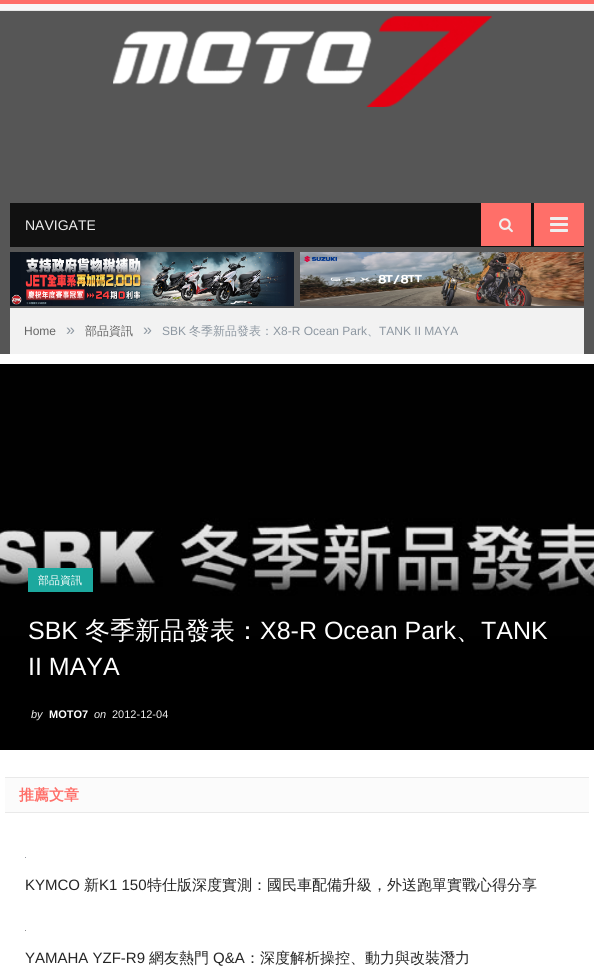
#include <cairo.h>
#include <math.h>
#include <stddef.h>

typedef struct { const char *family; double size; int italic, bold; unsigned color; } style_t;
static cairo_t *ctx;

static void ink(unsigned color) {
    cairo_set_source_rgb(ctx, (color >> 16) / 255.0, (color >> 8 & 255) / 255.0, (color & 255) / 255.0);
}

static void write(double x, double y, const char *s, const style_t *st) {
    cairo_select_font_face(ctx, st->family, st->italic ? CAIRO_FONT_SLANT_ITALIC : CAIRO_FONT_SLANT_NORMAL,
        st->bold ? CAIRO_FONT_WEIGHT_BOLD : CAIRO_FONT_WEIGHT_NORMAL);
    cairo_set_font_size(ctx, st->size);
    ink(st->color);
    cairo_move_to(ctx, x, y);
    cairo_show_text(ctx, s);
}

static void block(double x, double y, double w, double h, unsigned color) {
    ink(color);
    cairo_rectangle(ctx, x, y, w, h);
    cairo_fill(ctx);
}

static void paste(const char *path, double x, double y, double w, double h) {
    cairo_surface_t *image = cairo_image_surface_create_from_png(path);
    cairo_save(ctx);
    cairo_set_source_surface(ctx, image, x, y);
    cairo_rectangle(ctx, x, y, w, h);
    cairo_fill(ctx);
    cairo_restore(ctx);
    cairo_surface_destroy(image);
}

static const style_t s1 = {"Liberation Sans", 14, 0, 0, 0xefefef};
static const style_t s2 = {"Liberation Sans", 12, 0, 0, 0x656565};
static const style_t s3 = {"Liberation Sans", 16, 0, 0, 0x8d97a1};
static const style_t s4 = {"WenQuanYi Zen Hei Medium", 12, 0, 0, 0x656565};
static const style_t s5 = {"Liberation Sans", 12, 0, 0, 0x8d97a1};
static const style_t s6 = {"WenQuanYi Zen Hei Medium", 12, 0, 0, 0x8d97a1};
static const style_t s7 = {"WenQuanYi Zen Hei Medium", 11, 0, 0, 0xffffff};
static const style_t s8 = {"Liberation Sans", 25, 0, 0, 0xffffff};
static const style_t s9 = {"WenQuanYi Zen Hei Medium", 25, 0, 0, 0xffffff};
static const style_t s10 = {"Liberation Sans", 11, 1, 0, 0xefefef};
static const style_t s11 = {"Liberation Sans", 11, 0, 1, 0xffffff};
static const style_t s12 = {"Liberation Sans", 11, 0, 0, 0xefefef};
static const style_t s13 = {"WenQuanYi Zen Hei", 15, 0, 1, 0xff6f69};
static const style_t s14 = {"Liberation Sans", 15, 0, 0, 0x252525};
static const style_t s15 = {"WenQuanYi Zen Hei Medium", 15, 0, 0, 0x252525};

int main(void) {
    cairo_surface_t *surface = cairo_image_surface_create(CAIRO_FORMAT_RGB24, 594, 971);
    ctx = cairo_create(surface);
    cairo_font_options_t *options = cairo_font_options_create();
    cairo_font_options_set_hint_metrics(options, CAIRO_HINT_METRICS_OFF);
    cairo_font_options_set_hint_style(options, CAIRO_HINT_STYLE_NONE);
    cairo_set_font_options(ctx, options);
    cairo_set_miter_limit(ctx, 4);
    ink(0x565656);
    cairo_paint(ctx);
    block(0, 4, 594, 6, 0xf8f8f8);
    block(0, 0, 594, 4, 0xff6f69);
    block(0, 10, 594, 1, 0xe7e7e7);
    paste("pic1.png", 113, 16, 379, 91);
    block(10, 203, 574, 44, 0x111111);
    write(25, 230, "NAVIGATE", &s1);
    block(481, 203, 50, 43, 0xff6f69);
    paste("pic2.png", 499, 218, 14, 15);
    block(534, 203, 50, 43, 0xff6f69);
    paste("pic3.png", 550, 217, 18, 15);
    paste("pic4.png", 10, 252, 284, 54);
    paste("pic5.png", 300, 252, 284, 54);
    block(10, 308, 574, 46, 0xf2f2f2);
    write(24, 335, "Home", &s2);
    write(66, 335, "»", &s3);
    write(85, 335, "部品資訊", &s4);
    write(143, 335, "»", &s3);
    write(162, 335, "SBK", &s5);
    write(189, 335, "冬季新品發表：", &s6);
    write(273, 335, "X8-R Ocean Park", &s5);
    write(379, 335, "TANK II MAYA", &s5);
    write(367, 335, "、", &s6);
    block(0, 354, 594, 617, 0xffffff);
    paste("pic6.png", 0, 364, 594, 386);
    block(28, 568, 65, 24, 0x1ca89e);
    write(38, 584, "部品資訊", &s7);
    write(28, 639, "SBK", &s8);
    write(85, 639, "冬季新品發表：", &s9);
    write(260, 639, "X8-R Ocean Park", &s8);
    write(481, 639, "TANK", &s8);
    write(456, 639, "、", &s9);
    write(28, 675, "II MAYA", &s8);
    write(31, 718, "by", &s10);
    write(49, 718, "MOTO7", &s11);
    write(94, 718, "on", &s10);
    write(112, 718, "2012-12-04", &s12);
    block(5, 778, 584, 34, 0xfbfbfb);
    block(5, 777, 584, 1, 0xe9e9e9);
    block(5, 812, 584, 1, 0xe9e9e9);
    write(19, 800, "推薦文章", &s13);
    block(25, 857, 1, 1, 0x9498a1);
    write(25, 890, "KYMCO", &s14);
    write(84, 890, "新", &s15);
    write(99, 890, "K1 150", &s14);
    write(147, 890, "特仕版深度實測：國民車配備升級，外送跑單實戰心得分享", &s15);
    block(25, 930, 1, 1, 0x8e8f91);
    write(25, 963, "YAMAHA YZF-R9", &s14);
    write(149, 963, "網友熱門", &s15);
    write(213, 963, "Q&A", &s14);
    write(245, 963, "：深度解析操控、動力與改裝潛力", &s15);
    cairo_surface_write_to_png(surface, "screenshot.png");
    cairo_font_options_destroy(options);
    cairo_destroy(ctx);
    cairo_surface_destroy(surface);
    return 0;
}
